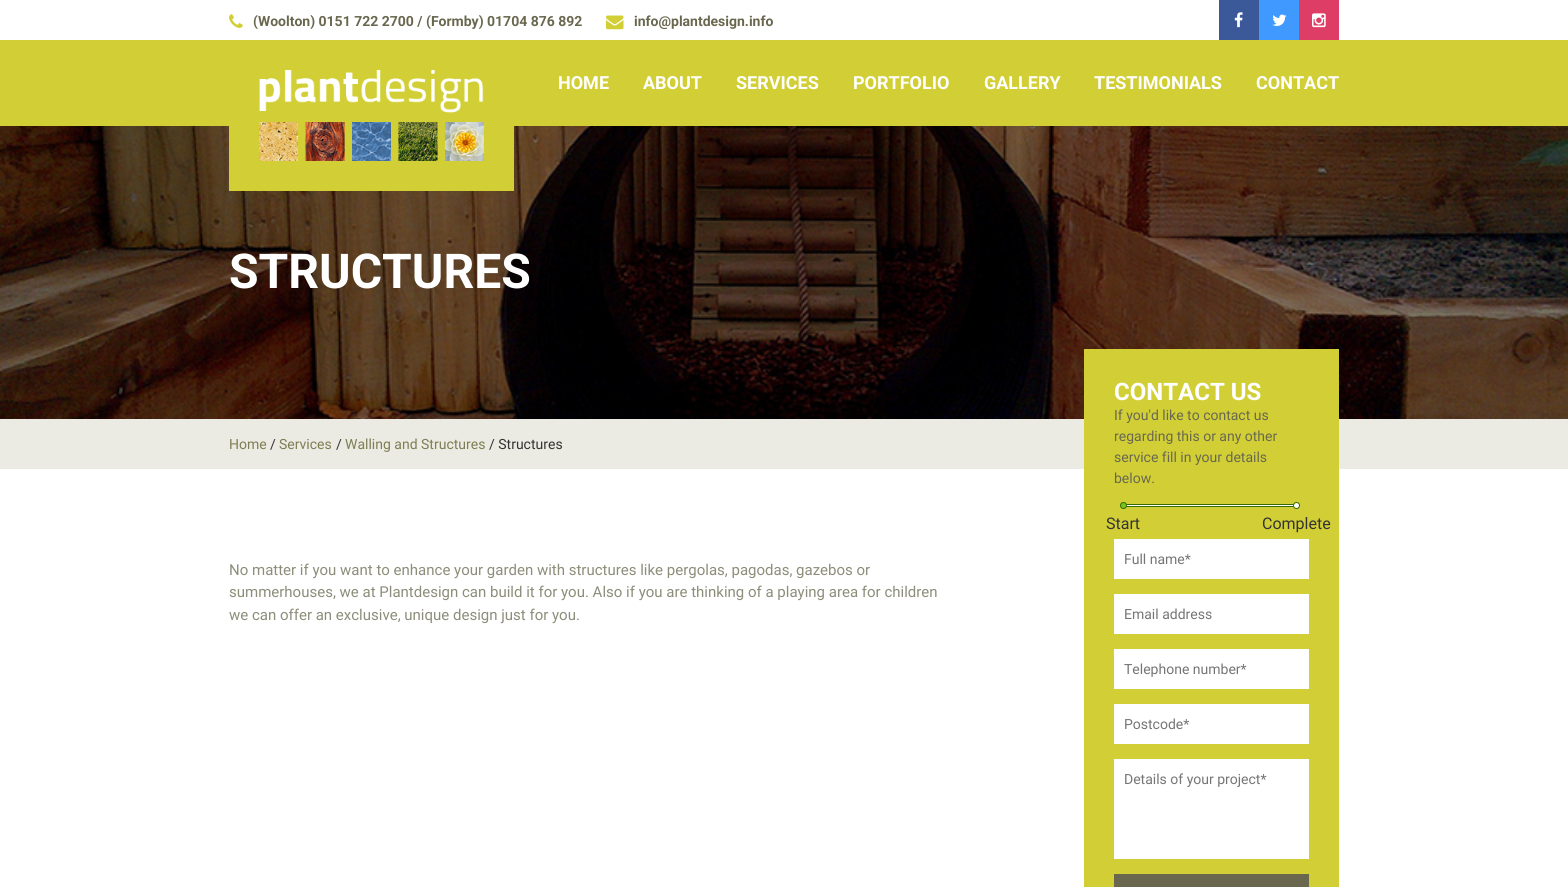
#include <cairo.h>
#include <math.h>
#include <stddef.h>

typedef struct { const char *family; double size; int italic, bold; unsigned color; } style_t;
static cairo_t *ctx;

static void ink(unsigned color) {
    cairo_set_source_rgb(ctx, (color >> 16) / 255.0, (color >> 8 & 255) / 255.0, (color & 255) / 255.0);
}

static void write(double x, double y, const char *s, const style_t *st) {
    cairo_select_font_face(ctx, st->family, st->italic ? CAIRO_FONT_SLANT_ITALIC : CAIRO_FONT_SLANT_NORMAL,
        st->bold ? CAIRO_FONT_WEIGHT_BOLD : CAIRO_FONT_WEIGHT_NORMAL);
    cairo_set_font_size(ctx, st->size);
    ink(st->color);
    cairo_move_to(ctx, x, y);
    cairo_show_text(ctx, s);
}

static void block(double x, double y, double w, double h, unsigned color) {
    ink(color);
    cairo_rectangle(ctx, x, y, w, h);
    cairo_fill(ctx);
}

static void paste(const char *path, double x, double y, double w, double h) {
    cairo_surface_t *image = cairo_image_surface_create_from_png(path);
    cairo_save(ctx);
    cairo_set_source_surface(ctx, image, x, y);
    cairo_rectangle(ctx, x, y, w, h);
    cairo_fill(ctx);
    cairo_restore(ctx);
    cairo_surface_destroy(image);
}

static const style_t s1 = {"Roboto", 14, 0, 1, 0x69684f};
static const style_t s2 = {"Roboto", 18, 0, 1, 0xffffff};
static const style_t s3 = {"Roboto", 48, 0, 1, 0xffffff};
static const style_t s4 = {"Roboto", 15, 0, 0, 0x8d8d7a};
static const style_t s5 = {"Roboto", 24, 0, 1, 0xffffff};
static const style_t s6 = {"Roboto", 14, 0, 0, 0x69684f};
static const style_t s7 = {"Roboto", 16, 0, 0, 0x333333};
static const style_t s8 = {"Roboto", 14, 0, 0, 0x757575};
static const style_t s9 = {"Roboto", 14, 0, 0, 0x7c7e53};
static const style_t s10 = {"Roboto", 14, 0, 0, 0x333333};

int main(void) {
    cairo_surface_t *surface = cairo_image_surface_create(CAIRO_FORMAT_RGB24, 1568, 887);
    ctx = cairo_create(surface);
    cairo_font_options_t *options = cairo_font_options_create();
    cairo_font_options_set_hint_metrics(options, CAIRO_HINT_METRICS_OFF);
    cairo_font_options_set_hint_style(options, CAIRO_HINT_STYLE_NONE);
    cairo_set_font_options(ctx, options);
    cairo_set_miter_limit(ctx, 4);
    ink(0xffffff);
    cairo_paint(ctx);
    paste("pic1.png", 229, 14, 14, 14);
    write(253, 26, "(Woolton) 0151 722 2700 / (Formby) 01704 876 892", &s1);
    paste("pic2.png", 606, 15, 18, 15);
    write(634, 26, "info@plantdesign.info", &s1);
    block(1219, 0, 40, 40, 0x3b5998);
    paste("pic3.png", 1234, 12, 9, 16);
    block(1259, 0, 40, 40, 0x4099ff);
    paste("pic4.png", 1272, 14, 15, 12);
    block(1299, 0, 40, 40, 0xde3d66);
    paste("pic5.png", 1312, 13, 14, 15);
    block(0, 40, 1568, 86, 0xd2cf36);
    paste("pic7.png", 0, 126, 1568, 293);
    block(229, 126, 285, 65, 0xd2cf36);
    paste("pic6.png", 259, 70, 225, 91);
    write(558, 89, "HOME", &s2);
    write(643, 89, "ABOUT", &s2);
    write(736, 89, "SERVICES", &s2);
    write(853, 89, "PORTFOLIO", &s2);
    write(984, 89, "GALLERY", &s2);
    write(1094, 89, "TESTIMONIALS", &s2);
    write(1256, 89, "CONTACT", &s2);
    write(229, 288, "STRUCTURES", &s3);
    write(229, 575, "No matter if you want to enhance your garden with structures like pergolas, pagodas, gazebos or", &s4);
    write(229, 597, "summerhouses, we at Plantdesign can build it for you. Also if you are thinking of a playing area for children", &s4);
    write(229, 620, "we can offer an exclusive, unique design just for you.", &s4);
    block(0, 419, 1568, 50, 0xebebe3);
    block(1084, 349, 255, 538, 0xd2cf36);
    write(1114, 400, "CONTACT US", &s5);
    write(1114, 420, "If you'd like to contact us", &s6);
    write(1114, 441, "regarding this or any other", &s6);
    write(1114, 462, "service fill in your details", &s6);
    write(1114, 483, "below.", &s6);
    ink(0xffffff);
    cairo_rectangle(ctx, 1123.5, 504.5, 174, 2);
    cairo_fill_preserve(ctx);
    ink(0x356900);
    cairo_set_line_width(ctx, 1);
    cairo_stroke(ctx);
    ink(0x74c421);
    cairo_arc(ctx, 1123.5, 505.5, 3, 0, 2 * M_PI);
    cairo_fill_preserve(ctx);
    ink(0x356900);
    cairo_stroke(ctx);
    write(1106, 529, "Start", &s7);
    ink(0xffffff);
    cairo_new_path(ctx);
    cairo_arc(ctx, 1296.5, 505.5, 3, 0, 2 * M_PI);
    cairo_fill_preserve(ctx);
    ink(0x356900);
    cairo_stroke(ctx);
    write(1262, 529, "Complete", &s7);
    block(1114, 539, 195, 40, 0xffffff);
    write(1124, 564, "Full name*", &s8);
    block(1114, 594, 195, 40, 0xffffff);
    write(1124, 619, "Email address", &s8);
    block(1114, 649, 195, 40, 0xffffff);
    write(1124, 674, "Telephone number*", &s8);
    block(1114, 704, 195, 40, 0xffffff);
    write(1124, 729, "Postcode*", &s8);
    block(1114, 759, 195, 100, 0xffffff);
    write(1124, 784, "Details of your project*", &s8);
    block(1114, 874, 195, 13, 0x69684f);
    write(229, 449, "Home", &s9);
    write(270, 449, "/", &s10);
    write(279, 449, "Services", &s9);
    write(336, 449, "/", &s10);
    write(345, 449, "Walling and Structures", &s9);
    write(489, 449, "/ Structures", &s10);
    cairo_surface_write_to_png(surface, "screenshot.png");
    cairo_font_options_destroy(options);
    cairo_destroy(ctx);
    cairo_surface_destroy(surface);
    return 0;
}
